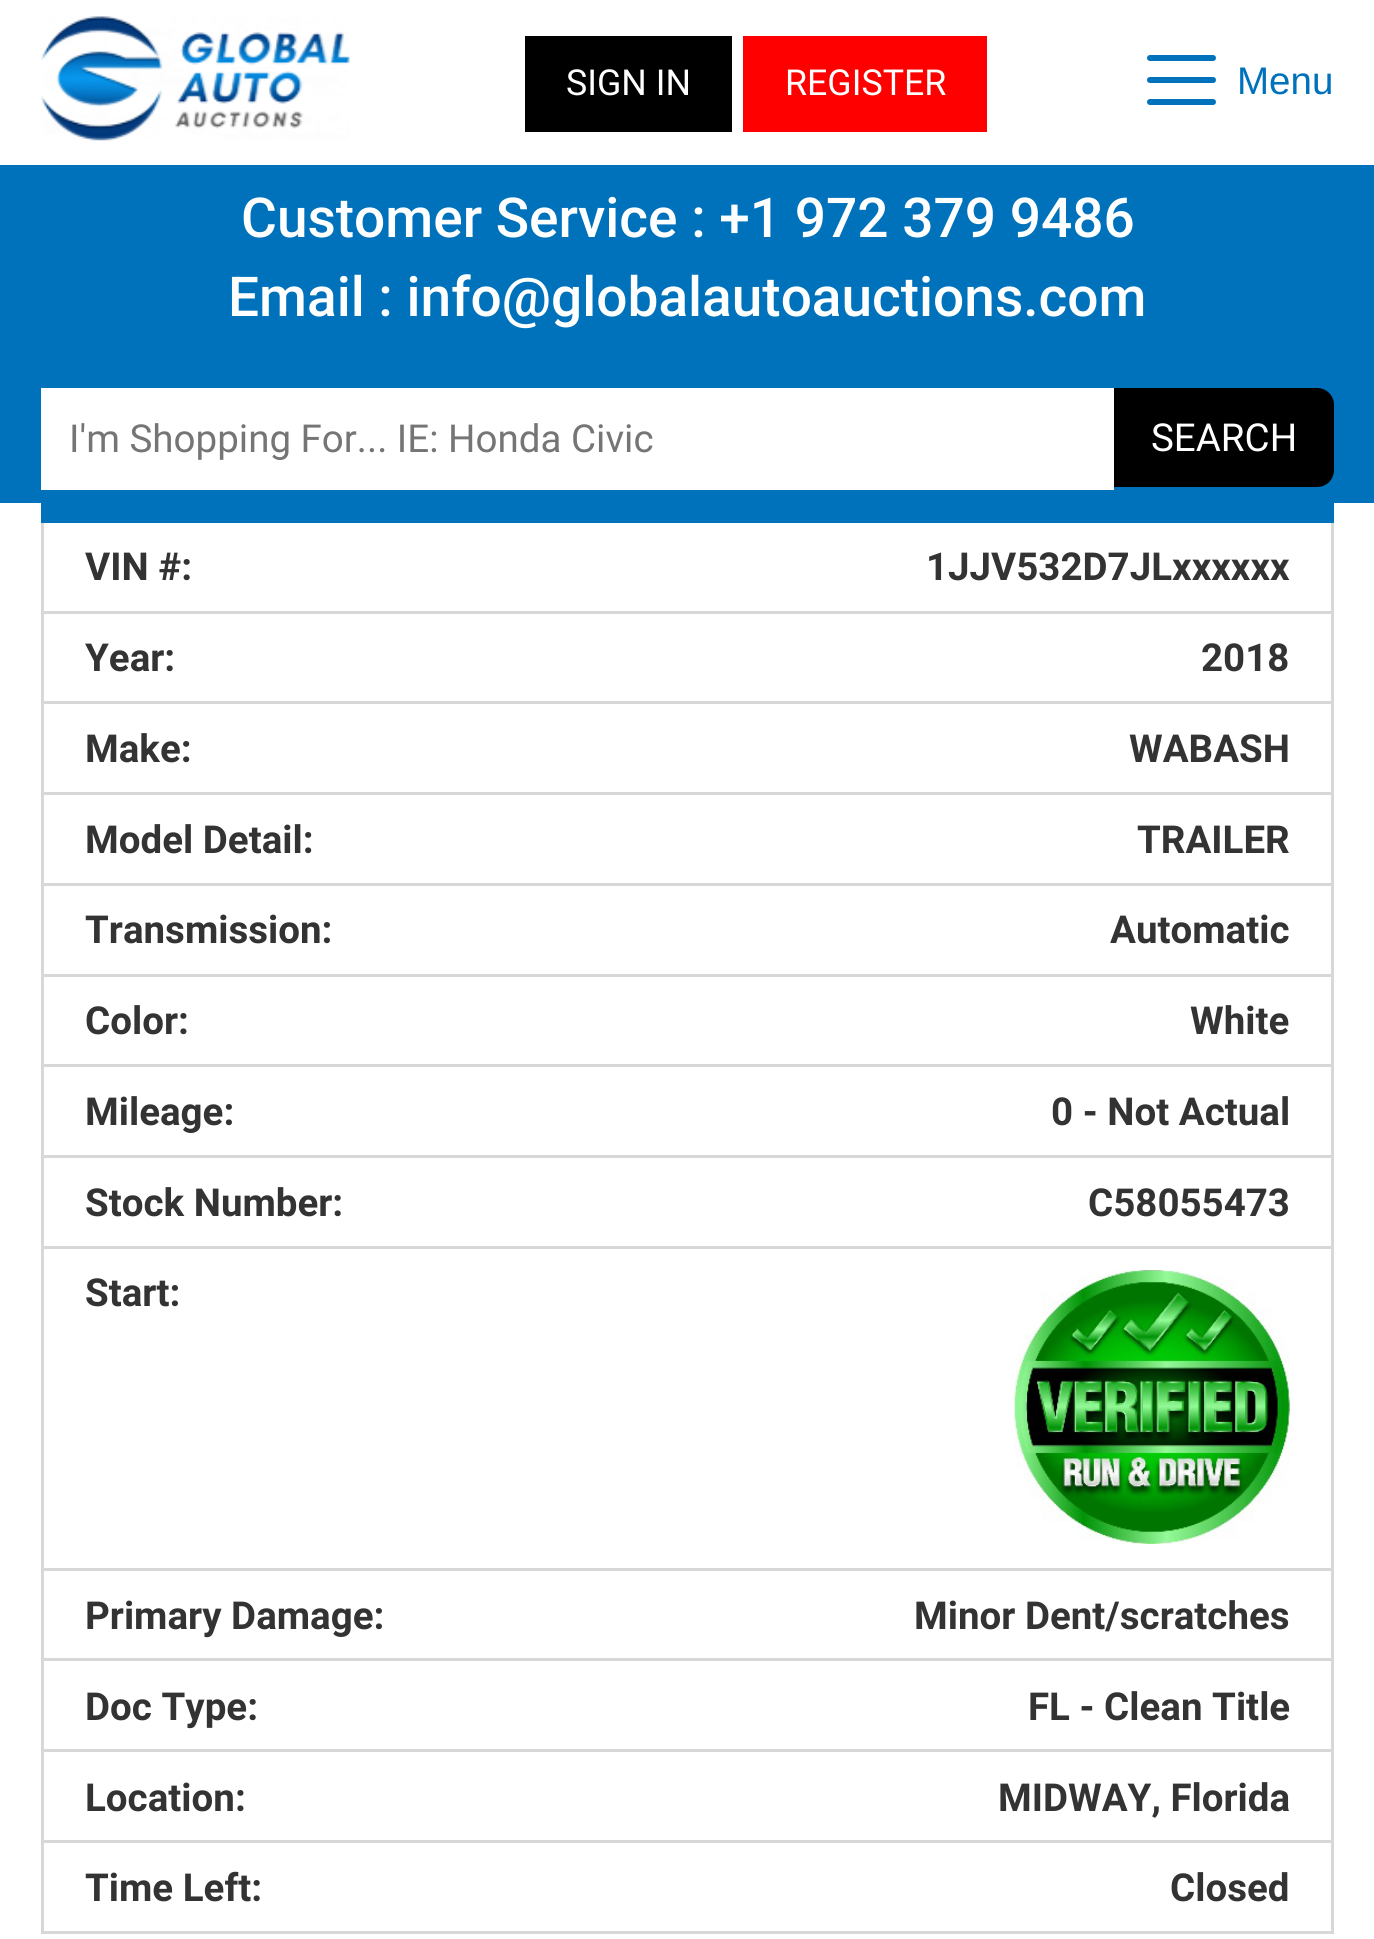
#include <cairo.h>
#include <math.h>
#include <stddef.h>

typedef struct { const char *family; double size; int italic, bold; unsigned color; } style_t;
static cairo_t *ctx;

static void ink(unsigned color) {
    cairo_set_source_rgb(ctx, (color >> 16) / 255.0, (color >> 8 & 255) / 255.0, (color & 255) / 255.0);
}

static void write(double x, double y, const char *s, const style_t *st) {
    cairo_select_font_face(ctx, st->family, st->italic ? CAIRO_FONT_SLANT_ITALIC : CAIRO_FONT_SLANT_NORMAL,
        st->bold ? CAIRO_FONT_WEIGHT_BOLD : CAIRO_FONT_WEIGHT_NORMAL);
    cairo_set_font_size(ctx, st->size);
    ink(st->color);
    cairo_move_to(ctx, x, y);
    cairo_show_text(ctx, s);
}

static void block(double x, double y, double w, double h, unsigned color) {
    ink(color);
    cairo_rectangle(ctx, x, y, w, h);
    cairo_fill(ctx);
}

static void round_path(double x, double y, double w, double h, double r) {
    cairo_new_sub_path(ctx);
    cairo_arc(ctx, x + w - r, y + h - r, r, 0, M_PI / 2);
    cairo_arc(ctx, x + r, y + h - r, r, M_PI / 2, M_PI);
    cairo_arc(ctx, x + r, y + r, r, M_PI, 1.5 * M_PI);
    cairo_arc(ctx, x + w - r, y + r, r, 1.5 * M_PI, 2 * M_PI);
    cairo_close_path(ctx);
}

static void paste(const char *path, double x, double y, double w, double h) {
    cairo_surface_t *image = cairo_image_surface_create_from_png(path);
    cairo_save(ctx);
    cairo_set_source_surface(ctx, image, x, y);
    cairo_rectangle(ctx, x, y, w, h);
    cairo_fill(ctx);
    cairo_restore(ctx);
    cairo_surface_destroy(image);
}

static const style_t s1 = {"Liberation Sans", 38.5, 0, 0, 0x0072bb};
static const style_t s2 = {"Roboto Medium", 55, 0, 0, 0xffffff};
static const style_t s3 = {"Roboto", 35.75, 0, 0, 0xffffff};
static const style_t s4 = {"Roboto", 38.5, 0, 0, 0x757575};
static const style_t s5 = {"Roboto", 38.5, 0, 0, 0xffffff};
static const style_t s6 = {"Roboto", 38.5, 0, 1, 0x333333};

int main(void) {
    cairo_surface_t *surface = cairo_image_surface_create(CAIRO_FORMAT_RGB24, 1374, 1939);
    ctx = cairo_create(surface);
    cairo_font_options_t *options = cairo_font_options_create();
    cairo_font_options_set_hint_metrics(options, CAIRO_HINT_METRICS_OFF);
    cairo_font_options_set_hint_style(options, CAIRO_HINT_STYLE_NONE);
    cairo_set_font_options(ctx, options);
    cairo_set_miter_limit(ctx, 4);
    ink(0xffffff);
    cairo_paint(ctx);
    ink(0x0072bb);
    round_path(1147, 55, 69, 6, 3);
    cairo_fill(ctx);
    round_path(1147, 77, 69, 6, 3);
    cairo_fill(ctx);
    round_path(1147, 99, 69, 6, 3);
    cairo_fill(ctx);
    write(1237, 94, "Menu", &s1);
    block(0, 165, 1374, 338, 0x0072bb);
    write(241, 237, "Customer Service : +1 972 379 9486", &s2);
    write(228, 316, "Email : info@globalautoauctions.com", &s2);
    paste("pic1.png", 41, 16, 309, 125);
    block(525, 36, 207, 96, 0x000000);
    write(566, 95, "SIGN IN", &s3);
    block(743, 36, 244, 96, 0xff0000);
    write(785, 95, "REGISTER", &s3);
    block(41, 388, 1073, 102, 0xffffff);
    write(69, 452, "I'm Shopping For... IE: Honda Civic", &s4);
    ink(0x000000);
    cairo_new_path(ctx);
    cairo_move_to(ctx, 1114, 388);
    cairo_line_to(ctx, 1317, 388);
    cairo_curve_to(ctx, 1326.5, 388, 1334, 395.5, 1334, 405);
    cairo_line_to(ctx, 1334, 470);
    cairo_curve_to(ctx, 1334, 479.5, 1326.5, 487, 1317, 487);
    cairo_line_to(ctx, 1114, 487);
    cairo_close_path(ctx);
    cairo_fill(ctx);
    write(1151, 451, "SEARCH", &s5);
    block(41, 503, 1293, 20, 0x0072bb);
    block(1331, 523, 3, 90, 0xd8d8d8);
    block(41, 611, 1293, 3, 0xd8d8d8);
    block(41, 523, 3, 90, 0xd8d8d8);
    write(85, 580, "VIN #:", &s6);
    write(926, 580, "1JJV532D7JLxxxxxx", &s6);
    block(1331, 613, 3, 363, 0xd8d8d8);
    block(41, 701, 1293, 3, 0xd8d8d8);
    block(41, 613, 3, 91, 0xd8d8d8);
    write(85, 671, "Year:", &s6);
    write(1201, 671, "2018", &s6);
    block(41, 792, 1293, 3, 0xd8d8d8);
    block(41, 704, 3, 91, 0xd8d8d8);
    write(85, 762, "Make:", &s6);
    write(1129, 762, "WABASH", &s6);
    block(41, 883, 1293, 3, 0xd8d8d8);
    block(41, 795, 3, 91, 0xd8d8d8);
    write(85, 853, "Model Detail:", &s6);
    write(1137, 853, "TRAILER", &s6);
    block(41, 974, 1293, 3, 0xd8d8d8);
    block(41, 886, 3, 90, 0xd8d8d8);
    write(85, 943, "Transmission:", &s6);
    write(1110, 943, "Automatic", &s6);
    block(1331, 976, 3, 594, 0xd8d8d8);
    block(41, 1064, 1293, 3, 0xd8d8d8);
    block(41, 976, 3, 91, 0xd8d8d8);
    write(85, 1034, "Color:", &s6);
    write(1190, 1034, "White", &s6);
    block(41, 1155, 1293, 3, 0xd8d8d8);
    block(41, 1067, 3, 91, 0xd8d8d8);
    write(85, 1125, "Mileage:", &s6);
    write(1051, 1125, "0 - Not Actual", &s6);
    block(41, 1246, 1293, 3, 0xd8d8d8);
    block(41, 1158, 3, 91, 0xd8d8d8);
    write(85, 1216, "Stock Number:", &s6);
    write(1088, 1216, "C58055473", &s6);
    block(41, 1568, 1293, 3, 0xd8d8d8);
    block(41, 1249, 3, 321, 0xd8d8d8);
    write(85, 1306, "Start:", &s6);
    paste("pic2.png", 1014, 1270, 276, 275);
    block(1331, 1570, 3, 363, 0xd8d8d8);
    block(41, 1658, 1293, 3, 0xd8d8d8);
    block(41, 1570, 3, 91, 0xd8d8d8);
    write(85, 1629, "Primary Damage:", &s6);
    write(914, 1629, "Minor Dent/scratches", &s6);
    block(41, 1749, 1293, 3, 0xd8d8d8);
    block(41, 1661, 3, 91, 0xd8d8d8);
    write(85, 1720, "Doc Type:", &s6);
    write(1028, 1720, "FL - Clean Title", &s6);
    block(41, 1840, 1293, 3, 0xd8d8d8);
    block(41, 1752, 3, 91, 0xd8d8d8);
    write(85, 1811, "Location:", &s6);
    write(998, 1811, "MIDWAY, Florida", &s6);
    block(41, 1931, 1293, 3, 0xd8d8d8);
    block(41, 1843, 3, 90, 0xd8d8d8);
    write(85, 1901, "Time Left:", &s6);
    write(1170, 1901, "Closed", &s6);
    cairo_surface_write_to_png(surface, "screenshot.png");
    cairo_font_options_destroy(options);
    cairo_destroy(ctx);
    cairo_surface_destroy(surface);
    return 0;
}
